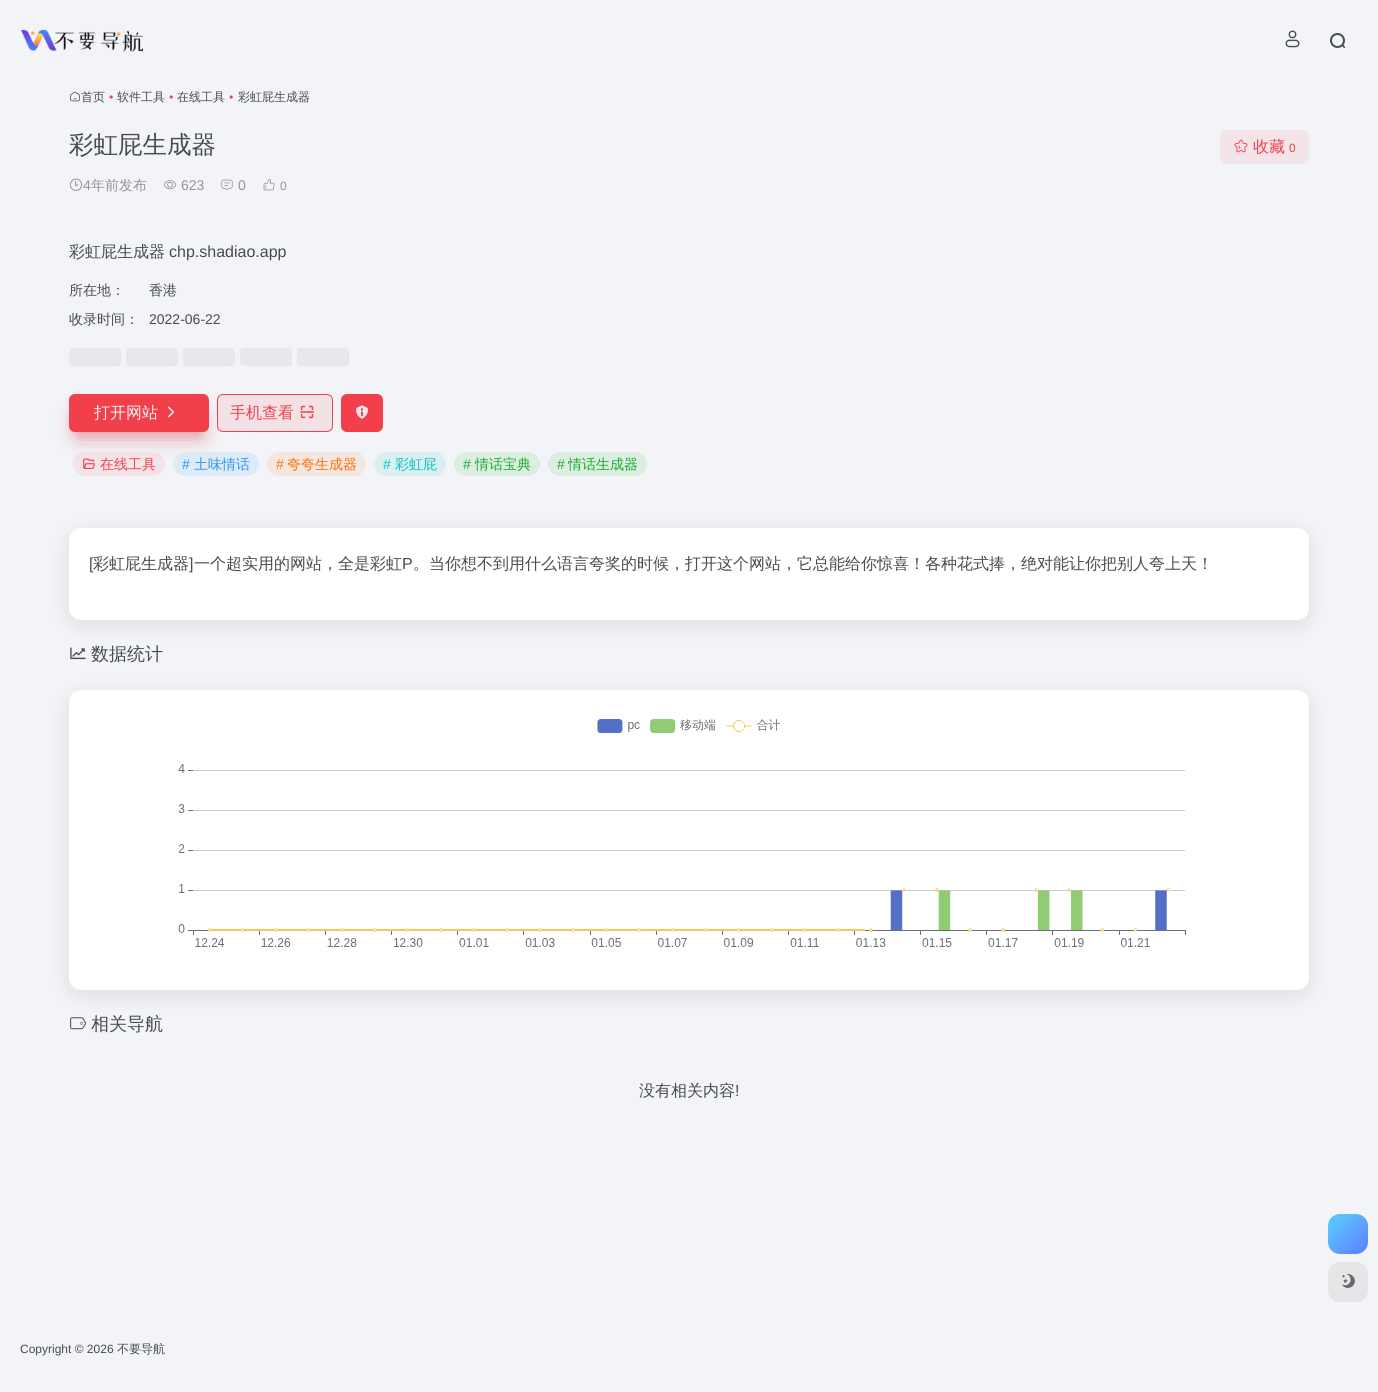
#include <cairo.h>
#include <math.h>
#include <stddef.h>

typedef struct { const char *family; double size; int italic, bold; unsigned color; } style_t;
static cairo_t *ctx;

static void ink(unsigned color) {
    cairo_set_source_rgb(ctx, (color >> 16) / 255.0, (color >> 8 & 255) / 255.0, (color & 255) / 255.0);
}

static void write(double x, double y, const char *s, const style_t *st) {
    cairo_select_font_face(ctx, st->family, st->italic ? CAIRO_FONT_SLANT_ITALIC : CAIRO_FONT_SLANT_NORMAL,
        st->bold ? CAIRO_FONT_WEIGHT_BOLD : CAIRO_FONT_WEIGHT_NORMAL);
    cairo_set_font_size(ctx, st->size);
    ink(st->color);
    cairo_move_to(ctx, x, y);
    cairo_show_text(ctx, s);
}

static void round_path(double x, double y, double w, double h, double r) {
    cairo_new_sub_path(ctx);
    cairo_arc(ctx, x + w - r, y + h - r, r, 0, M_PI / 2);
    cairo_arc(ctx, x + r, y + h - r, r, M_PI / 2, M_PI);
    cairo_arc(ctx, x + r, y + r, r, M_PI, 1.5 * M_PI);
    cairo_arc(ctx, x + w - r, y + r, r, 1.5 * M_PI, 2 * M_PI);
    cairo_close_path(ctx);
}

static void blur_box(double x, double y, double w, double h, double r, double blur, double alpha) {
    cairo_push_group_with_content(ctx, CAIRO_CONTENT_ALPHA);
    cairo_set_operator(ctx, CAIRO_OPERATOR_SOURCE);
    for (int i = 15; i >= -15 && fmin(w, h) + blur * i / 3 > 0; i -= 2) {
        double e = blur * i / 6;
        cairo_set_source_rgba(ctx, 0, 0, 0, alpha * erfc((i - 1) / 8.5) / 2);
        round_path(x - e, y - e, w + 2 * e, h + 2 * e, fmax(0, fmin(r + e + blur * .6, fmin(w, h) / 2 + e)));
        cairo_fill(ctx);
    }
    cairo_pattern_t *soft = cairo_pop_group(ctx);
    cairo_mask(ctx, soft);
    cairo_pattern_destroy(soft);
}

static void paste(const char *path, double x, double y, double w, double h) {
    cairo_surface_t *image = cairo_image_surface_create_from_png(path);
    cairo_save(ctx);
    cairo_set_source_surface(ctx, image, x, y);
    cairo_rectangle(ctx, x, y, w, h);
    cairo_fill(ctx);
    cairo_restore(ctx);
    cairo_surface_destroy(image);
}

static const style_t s1 = {"WenQuanYi Zen Hei Medium", 12, 0, 0, 0x484b4f};
static const style_t s2 = {"Liberation Sans", 12, 1, 0, 0xf1404b};
static const style_t s3 = {"WenQuanYi Zen Hei Medium", 24.5, 0, 0, 0x484b4f};
static const style_t s4 = {"Liberation Sans", 14, 0, 0, 0x93959a};
static const style_t s5 = {"WenQuanYi Zen Hei Medium", 14, 0, 0, 0x93959a};
static const style_t s6 = {"Liberation Sans", 12, 0, 0, 0x93959a};
static const style_t s7 = {"WenQuanYi Zen Hei Medium", 16, 0, 0, 0xf1404b};
static const style_t s8 = {"Liberation Sans", 12, 0, 0, 0xf1404b};
static const style_t s9 = {"WenQuanYi Zen Hei Medium", 16, 0, 0, 0x484b4f};
static const style_t s10 = {"Liberation Sans", 16, 0, 0, 0x484b4f};
static const style_t s11 = {"WenQuanYi Zen Hei Medium", 14, 0, 0, 0x484b4f};
static const style_t s12 = {"Liberation Sans", 14, 0, 0, 0x484b4f};
static const style_t s13 = {"WenQuanYi Zen Hei Medium", 16, 0, 0, 0xf1f2f3};
static const style_t s14 = {"WenQuanYi Zen Hei Medium", 14, 0, 0, 0xf1404b};
static const style_t s15 = {"Liberation Sans", 14, 0, 0, 0x2997f7};
static const style_t s16 = {"WenQuanYi Zen Hei Medium", 14, 0, 0, 0x2997f7};
static const style_t s17 = {"Liberation Sans", 14, 0, 0, 0xff6f06};
static const style_t s18 = {"WenQuanYi Zen Hei Medium", 14, 0, 0, 0xff6f06};
static const style_t s19 = {"Liberation Sans", 14, 0, 0, 0x08c4c1};
static const style_t s20 = {"WenQuanYi Zen Hei Medium", 14, 0, 0, 0x08c4c1};
static const style_t s21 = {"Liberation Sans", 14, 0, 0, 0x19aa2c};
static const style_t s22 = {"WenQuanYi Zen Hei Medium", 14, 0, 0, 0x19aa2c};
static const style_t s23 = {"WenQuanYi Zen Hei Medium", 18, 0, 0, 0x484b4f};
static const style_t s24 = {"Liberation Sans", 12, 0, 0, 0x484b4f};

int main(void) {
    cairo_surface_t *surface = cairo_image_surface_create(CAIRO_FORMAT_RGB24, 1378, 1392);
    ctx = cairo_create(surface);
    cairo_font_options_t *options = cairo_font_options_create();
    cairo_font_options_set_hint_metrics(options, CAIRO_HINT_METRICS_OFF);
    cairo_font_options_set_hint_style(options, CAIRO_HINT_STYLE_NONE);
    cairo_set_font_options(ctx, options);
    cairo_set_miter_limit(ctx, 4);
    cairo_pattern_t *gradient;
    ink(0xf2f4f7);
    cairo_paint(ctx);
    paste("pic1.png", 20, 29, 123, 23);
    paste("pic2.png", 1285, 30, 15, 18);
    cairo_arc(ctx, 1337.5, 40.5, 6.5, 0, 2 * M_PI);
    ink(0x484b4f);
    cairo_stroke(ctx);
    cairo_new_path(ctx);
    cairo_move_to(ctx, 1343.5, 45);
    cairo_line_to(ctx, 1345, 47);
    cairo_curve_to(ctx, 1345.5, 47.5, 1344.5, 48.5, 1344, 48);
    cairo_line_to(ctx, 1343, 47);
    cairo_curve_to(ctx, 1341, 45.5, 1342.5, 44, 1343.5, 45);
    cairo_close_path(ctx);
    cairo_fill(ctx);
    paste("pic3.png", 70, 91, 10, 11);
    write(81, 101, "首页", &s1);
    write(109, 101, "•", &s2);
    write(117, 101, "软件工具", &s1);
    write(169, 101, "•", &s2);
    write(177, 101, "在线工具", &s1);
    write(229, 101, "•", &s2);
    write(238, 101, "彩虹屁生成器", &s1);
    write(69, 153, "彩虹屁生成器", &s3);
    paste("pic4.png", 69, 178, 14, 13);
    write(83, 190, "4", &s4);
    write(91, 190, "年前发布", &s5);
    paste("pic5.png", 163, 180, 14, 10);
    write(181, 190, "623", &s4);
    paste("pic6.png", 221, 179, 12, 11);
    write(238, 190, "0", &s4);
    paste("pic7.png", 263, 179, 12, 12);
    write(280, 190, "0", &s6);
    ink(0xf3e4ea);
    round_path(1220, 130, 89, 34, 6);
    cairo_fill(ctx);
    paste("pic8.png", 1234, 139, 14, 14);
    write(1253, 152, "收藏", &s7);
    write(1289, 152, "0", &s8);
    write(69, 257, "彩虹屁生成器", &s9);
    write(169, 257, "chp.shadiao.app", &s10);
    write(69, 295, "所在地：", &s11);
    write(149, 295, "香港", &s11);
    write(69, 324, "收录时间：", &s11);
    write(149, 324, "2022-06-22", &s12);
    gradient = cairo_pattern_create_linear(84, 316, 262, 398);
    cairo_pattern_add_color_stop_rgba(gradient, 0.25, 0.902, 0.91, 0.918, 1);
    cairo_pattern_add_color_stop_rgba(gradient, 0.37, 0.855, 0.859, 0.871, 1);
    cairo_pattern_add_color_stop_rgba(gradient, 0.63, 0.902, 0.91, 0.918, 1);
    cairo_set_source(ctx, gradient);
    cairo_pattern_destroy(gradient);
    round_path(69, 348, 52, 18, 4);
    cairo_fill(ctx);
    gradient = cairo_pattern_create_linear(141, 316, 319, 398);
    cairo_pattern_add_color_stop_rgba(gradient, 0.25, 0.902, 0.91, 0.918, 1);
    cairo_pattern_add_color_stop_rgba(gradient, 0.37, 0.855, 0.859, 0.871, 1);
    cairo_pattern_add_color_stop_rgba(gradient, 0.63, 0.902, 0.91, 0.918, 1);
    cairo_set_source(ctx, gradient);
    cairo_pattern_destroy(gradient);
    round_path(126, 348, 52, 18, 4);
    cairo_fill(ctx);
    gradient = cairo_pattern_create_linear(198, 316, 376, 398);
    cairo_pattern_add_color_stop_rgba(gradient, 0.25, 0.902, 0.91, 0.918, 1);
    cairo_pattern_add_color_stop_rgba(gradient, 0.37, 0.855, 0.859, 0.871, 1);
    cairo_pattern_add_color_stop_rgba(gradient, 0.63, 0.902, 0.91, 0.918, 1);
    cairo_set_source(ctx, gradient);
    cairo_pattern_destroy(gradient);
    round_path(183, 348, 52, 18, 4);
    cairo_fill(ctx);
    gradient = cairo_pattern_create_linear(255, 316, 433, 398);
    cairo_pattern_add_color_stop_rgba(gradient, 0.25, 0.902, 0.91, 0.918, 1);
    cairo_pattern_add_color_stop_rgba(gradient, 0.37, 0.855, 0.859, 0.871, 1);
    cairo_pattern_add_color_stop_rgba(gradient, 0.63, 0.902, 0.91, 0.918, 1);
    cairo_set_source(ctx, gradient);
    cairo_pattern_destroy(gradient);
    round_path(240, 348, 52, 18, 4);
    cairo_fill(ctx);
    gradient = cairo_pattern_create_linear(312, 316, 490, 398);
    cairo_pattern_add_color_stop_rgba(gradient, 0.25, 0.902, 0.91, 0.918, 1);
    cairo_pattern_add_color_stop_rgba(gradient, 0.37, 0.855, 0.859, 0.871, 1);
    cairo_pattern_add_color_stop_rgba(gradient, 0.63, 0.902, 0.91, 0.918, 1);
    cairo_set_source(ctx, gradient);
    cairo_pattern_destroy(gradient);
    round_path(297, 348, 52, 18, 4);
    cairo_fill(ctx);
    ink(0xdc414b);
    blur_box(77, 414, 124, 22, 0, 10, 0.6);
    ink(0xf1404b);
    round_path(69, 394, 140, 38, 6);
    cairo_fill(ctx);
    write(94, 418, "打开网站", &s13);
    paste("pic9.png", 168, 406, 6, 12);
    cairo_set_source_rgba(ctx, 0.945, 0.251, 0.294, 0.1);
    round_path(217.5, 394.5, 115, 37, 5.5);
    cairo_fill_preserve(ctx);
    ink(0xf1404b);
    cairo_set_line_width(ctx, 1);
    cairo_stroke(ctx);
    write(230, 418, "手机查看", &s7);
    paste("pic10.png", 300, 405, 14, 14);
    round_path(341, 394, 42, 38, 6);
    cairo_fill(ctx);
    paste("pic11.png", 356, 405, 12, 14);
    cairo_set_source_rgba(ctx, 1, 0.329, 0.451, 0.1);
    round_path(73, 452, 92, 24, 12);
    cairo_fill(ctx);
    paste("pic12.png", 83, 458, 12, 11);
    write(100, 469, "在线工具", &s14);
    cairo_set_source_rgba(ctx, 0.161, 0.592, 0.969, 0.1);
    round_path(173, 452, 86, 24, 12);
    cairo_fill(ctx);
    write(182, 469, "#", &s15);
    write(194, 469, "土味情话", &s16);
    ink(0xf3e7df);
    round_path(267, 452, 99, 24, 12);
    cairo_fill(ctx);
    write(276, 469, "#", &s17);
    write(287, 469, "夸夸生成器", &s18);
    ink(0xdbeff2);
    round_path(374, 452, 72, 24, 12);
    cairo_fill(ctx);
    write(383, 469, "#", &s19);
    write(395, 469, "彩虹屁", &s20);
    ink(0xdceee2);
    round_path(454, 452, 86, 24, 12);
    cairo_fill(ctx);
    write(463, 469, "#", &s21);
    write(475, 469, "情话宝典", &s22);
    ink(0xdceee2);
    round_path(548, 452, 99, 24, 12);
    cairo_fill(ctx);
    write(557, 469, "#", &s21);
    write(568, 469, "情话生成器", &s22);
    paste("pic13.png", 70, 647, 16, 13);
    ink(0x000000);
    blur_box(69, 533, 1240, 92, 12, 10, 0.1);
    ink(0xffffff);
    round_path(69, 528, 1240, 92, 12);
    cairo_fill(ctx);
    write(89, 569, "[", &s10);
    write(93, 569, "彩虹屁生成器", &s9);
    write(189, 569, "]", &s10);
    write(194, 569, "一个超实用的网站，全是彩虹", &s9);
    write(402, 569, "P", &s10);
    write(413, 569, "。当你想不到用什么语言夸奖的时候，打开这个网站，它总能给你惊喜！各种花式捧，绝对能让你把别人夸上天！", &s9);
    write(91, 660, "数据统计", &s23);
    paste("pic15.png", 70, 1017, 16, 13);
    ink(0x000000);
    blur_box(69, 695, 1240, 300, 12, 10, 0.1);
    ink(0xffffff);
    round_path(69, 690, 1240, 300, 12);
    cairo_fill(ctx);
    paste("pic14.png", 178, 719, 1008, 228);
    write(91, 1030, "相关导航", &s23);
    write(639, 1096, "没有相关内容", &s9);
    write(735, 1096, "!", &s10);
    gradient = cairo_pattern_create_linear(1328, 1214, 1368, 1254);
    cairo_pattern_add_color_stop_rgba(gradient, 0.2, 0.361, 0.757, 1, 1);
    cairo_pattern_add_color_stop_rgba(gradient, 1, 0.361, 0.486, 1, 1);
    cairo_set_source(ctx, gradient);
    cairo_pattern_destroy(gradient);
    round_path(1328, 1214, 40, 40, 12);
    cairo_fill(ctx);
    ink(0xe5e6e7);
    round_path(1328, 1262, 40, 40, 12);
    cairo_fill(ctx);
    paste("pic16.png", 1342, 1274, 13, 14);
    write(20, 1353, "Copyright © 2026", &s24);
    write(117, 1353, "不要导航", &s1);
    cairo_surface_write_to_png(surface, "screenshot.png");
    cairo_font_options_destroy(options);
    cairo_destroy(ctx);
    cairo_surface_destroy(surface);
    return 0;
}
